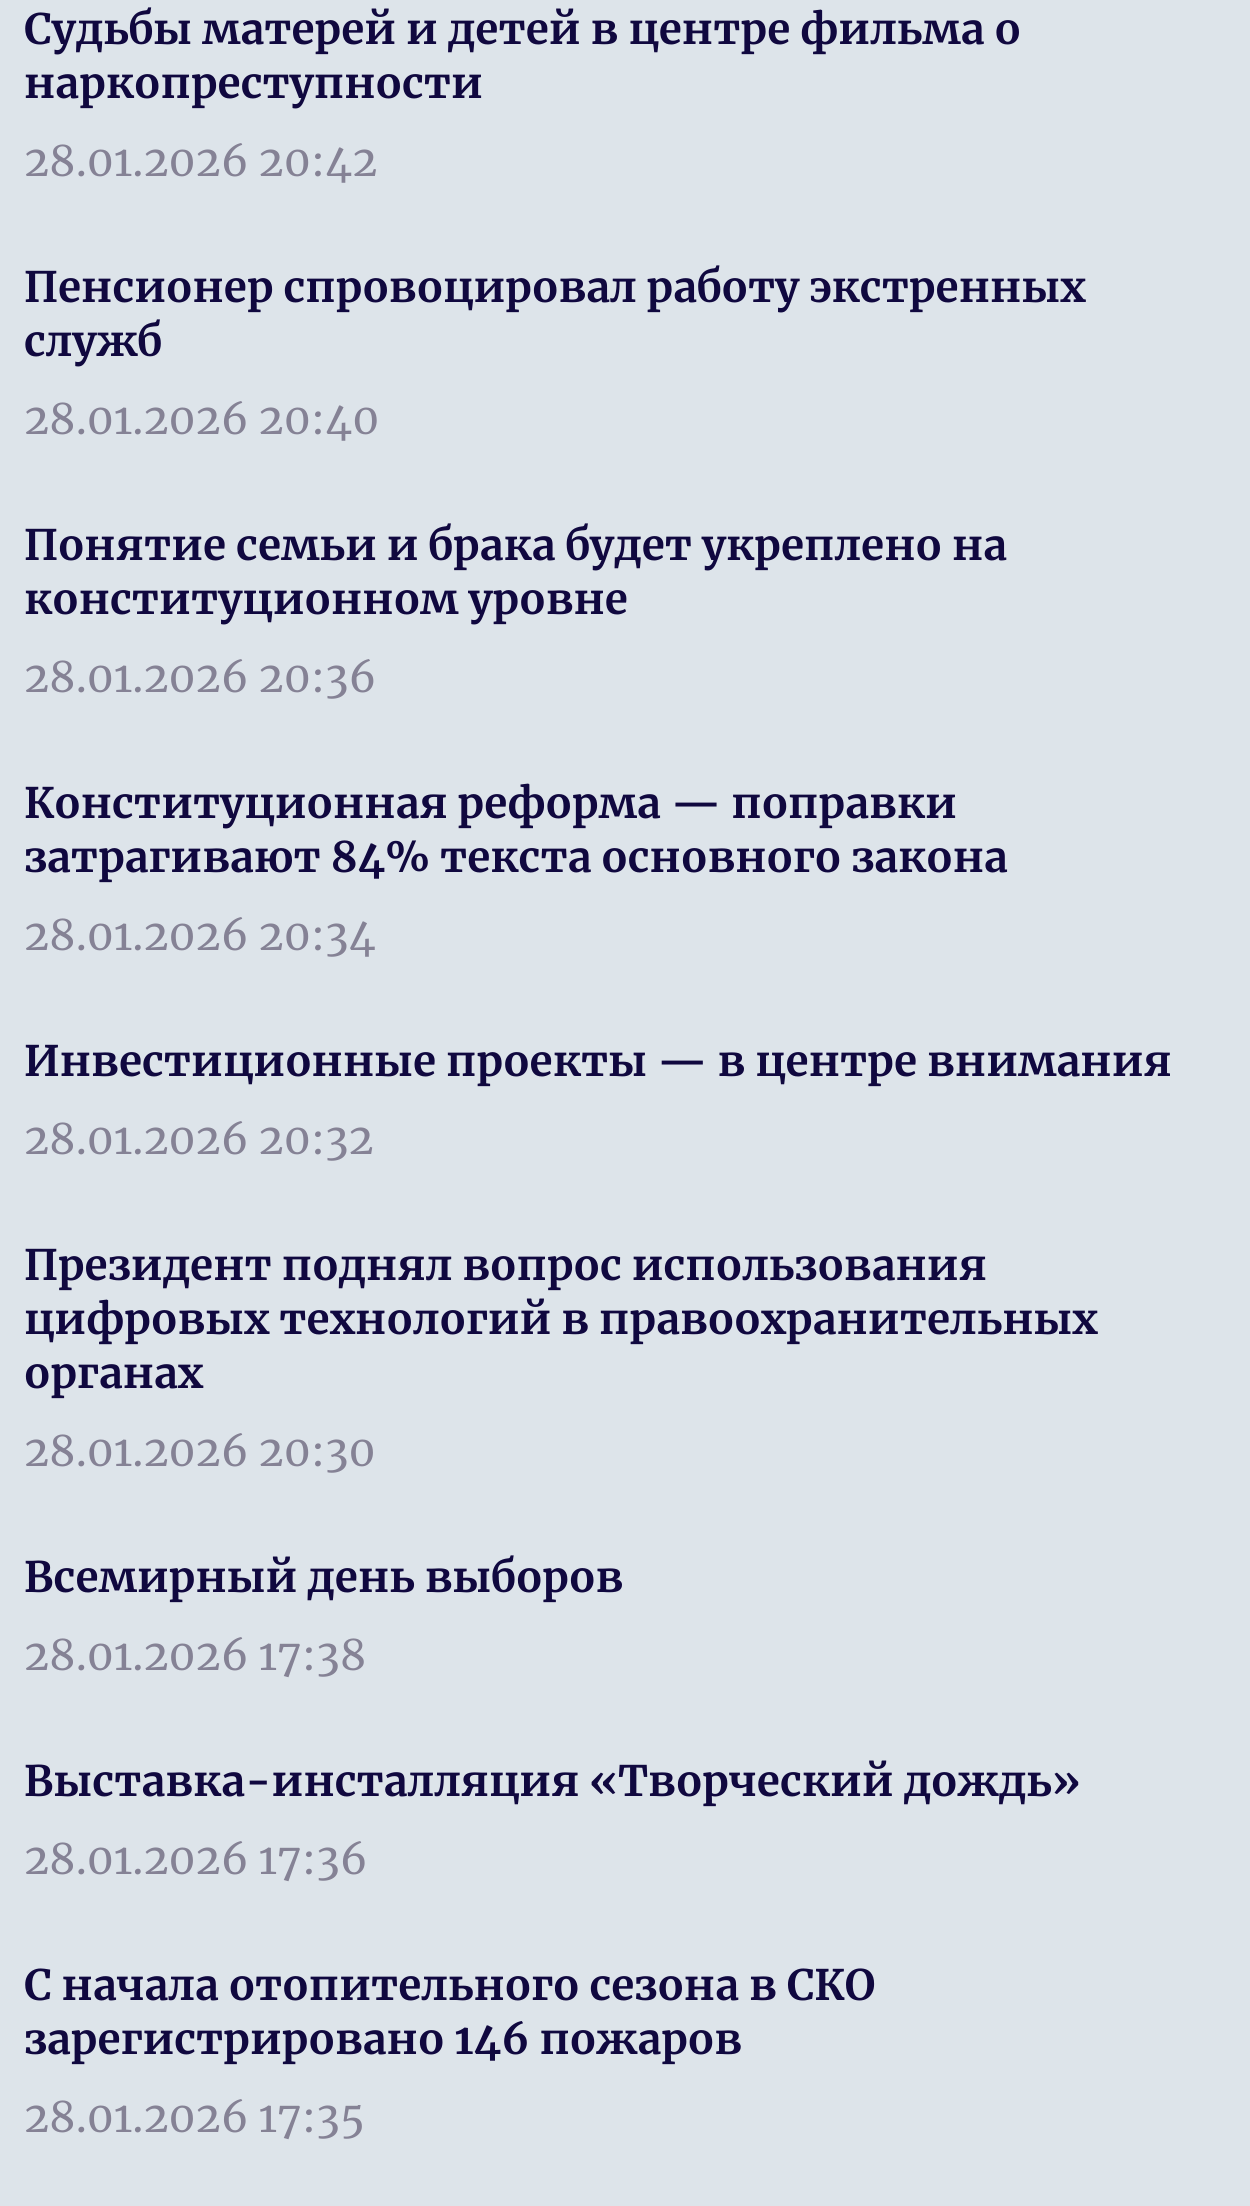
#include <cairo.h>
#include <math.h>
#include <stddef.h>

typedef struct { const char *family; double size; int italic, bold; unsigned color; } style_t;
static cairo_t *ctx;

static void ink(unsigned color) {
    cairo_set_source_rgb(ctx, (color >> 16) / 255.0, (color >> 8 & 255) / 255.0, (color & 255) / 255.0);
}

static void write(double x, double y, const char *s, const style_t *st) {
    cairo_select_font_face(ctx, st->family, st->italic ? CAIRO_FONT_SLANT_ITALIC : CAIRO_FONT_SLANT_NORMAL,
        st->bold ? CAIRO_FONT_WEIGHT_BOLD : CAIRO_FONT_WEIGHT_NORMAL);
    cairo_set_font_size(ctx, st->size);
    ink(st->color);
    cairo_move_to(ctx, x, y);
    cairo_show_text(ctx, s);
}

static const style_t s1 = {"Merriweather", 42, 0, 1, 0x10083f};
static const style_t s2 = {"Merriweather", 42, 0, 0, 0x858295};

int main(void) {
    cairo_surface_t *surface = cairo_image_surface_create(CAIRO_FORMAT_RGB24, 1250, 2206);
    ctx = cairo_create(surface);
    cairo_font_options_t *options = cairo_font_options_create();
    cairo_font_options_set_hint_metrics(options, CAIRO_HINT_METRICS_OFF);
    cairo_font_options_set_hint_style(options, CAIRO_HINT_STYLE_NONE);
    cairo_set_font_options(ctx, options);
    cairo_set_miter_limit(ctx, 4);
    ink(0xdde4ea);
    cairo_paint(ctx);
    write(24, 44, "Судьбы матерей и детей в центре фильма о", &s1);
    write(24, 98, "наркопреступности", &s1);
    write(24, 176, "28.01.2026 20:42", &s2);
    write(24, 302, "Пенсионер спровоцировал работу экстренных", &s1);
    write(24, 356, "служб", &s1);
    write(24, 434, "28.01.2026 20:40", &s2);
    write(24, 560, "Понятие семьи и брака будет укреплено на", &s1);
    write(24, 614, "конституционном уровне", &s1);
    write(24, 692, "28.01.2026 20:36", &s2);
    write(24, 818, "Конституционная реформа — поправки", &s1);
    write(24, 872, "затрагивают 84% текста основного закона", &s1);
    write(24, 950, "28.01.2026 20:34", &s2);
    write(24, 1076, "Инвестиционные проекты — в центре внимания", &s1);
    write(24, 1154, "28.01.2026 20:32", &s2);
    write(24, 1280, "Президент поднял вопрос использования", &s1);
    write(24, 1334, "цифровых технологий в правоохранительных", &s1);
    write(24, 1388, "органах", &s1);
    write(24, 1466, "28.01.2026 20:30", &s2);
    write(24, 1592, "Всемирный день выборов", &s1);
    write(24, 1670, "28.01.2026 17:38", &s2);
    write(24, 1796, "Выставка-инсталляция «Творческий дождь»", &s1);
    write(24, 1874, "28.01.2026 17:36", &s2);
    write(24, 2000, "С начала отопительного сезона в СКО", &s1);
    write(24, 2054, "зарегистрировано 146 пожаров", &s1);
    write(24, 2132, "28.01.2026 17:35", &s2);
    cairo_surface_write_to_png(surface, "screenshot.png");
    cairo_font_options_destroy(options);
    cairo_destroy(ctx);
    cairo_surface_destroy(surface);
    return 0;
}
